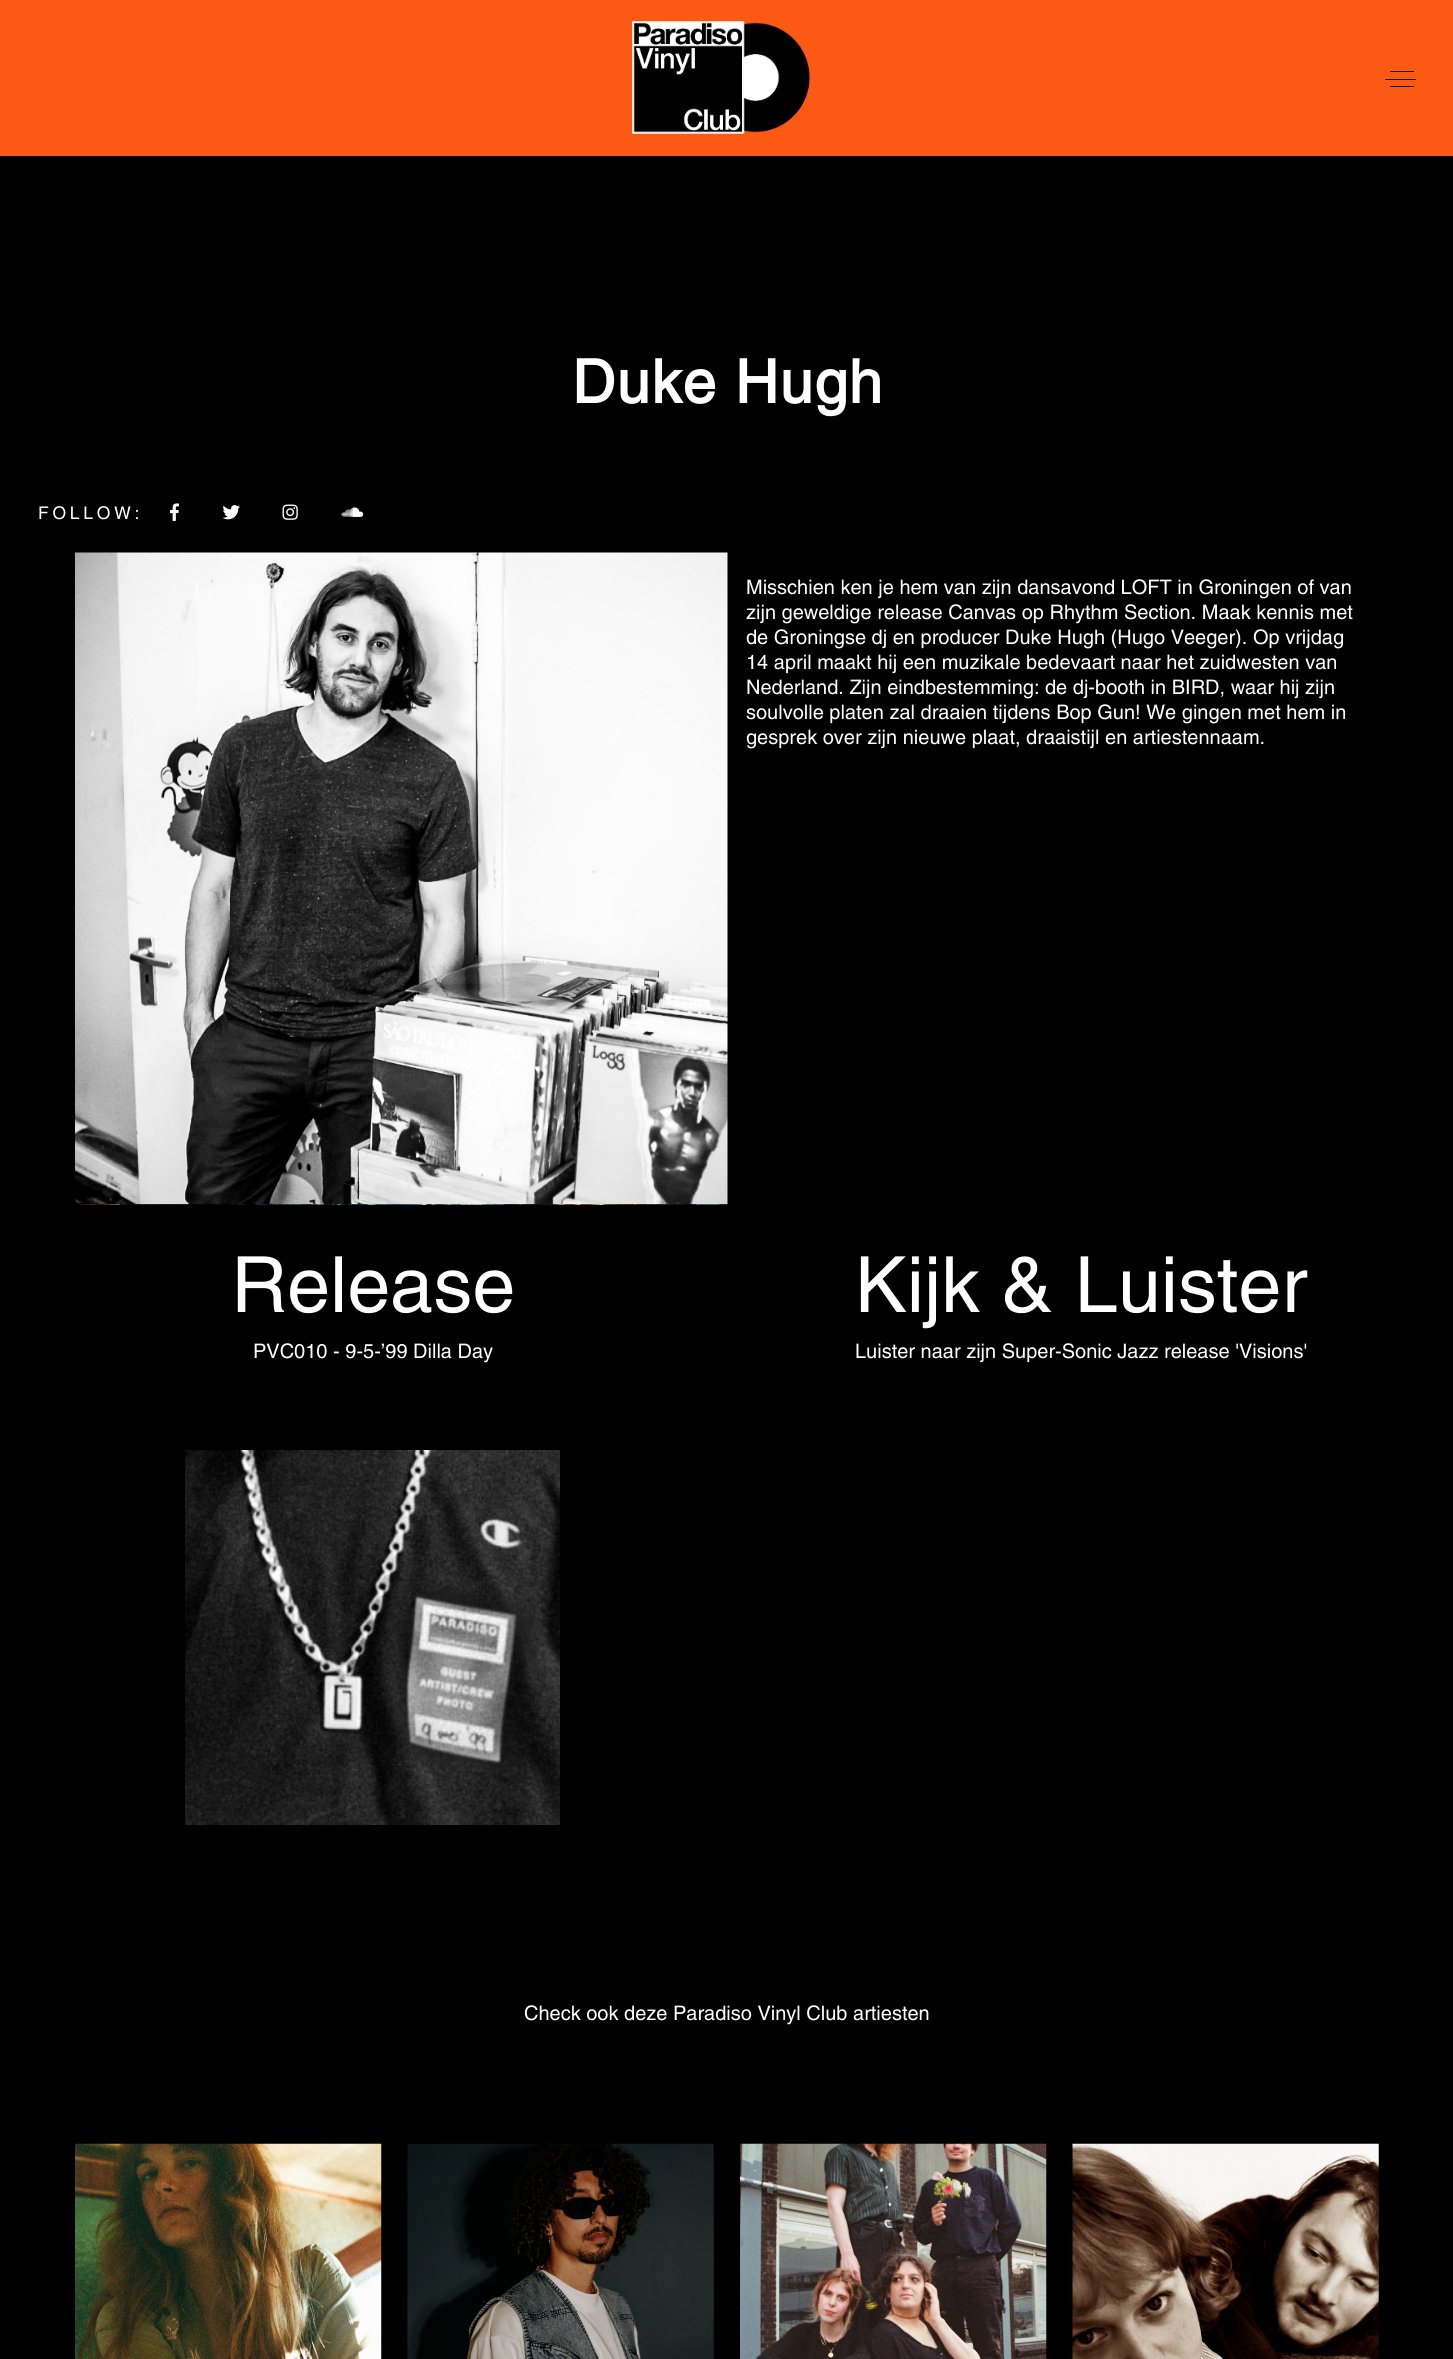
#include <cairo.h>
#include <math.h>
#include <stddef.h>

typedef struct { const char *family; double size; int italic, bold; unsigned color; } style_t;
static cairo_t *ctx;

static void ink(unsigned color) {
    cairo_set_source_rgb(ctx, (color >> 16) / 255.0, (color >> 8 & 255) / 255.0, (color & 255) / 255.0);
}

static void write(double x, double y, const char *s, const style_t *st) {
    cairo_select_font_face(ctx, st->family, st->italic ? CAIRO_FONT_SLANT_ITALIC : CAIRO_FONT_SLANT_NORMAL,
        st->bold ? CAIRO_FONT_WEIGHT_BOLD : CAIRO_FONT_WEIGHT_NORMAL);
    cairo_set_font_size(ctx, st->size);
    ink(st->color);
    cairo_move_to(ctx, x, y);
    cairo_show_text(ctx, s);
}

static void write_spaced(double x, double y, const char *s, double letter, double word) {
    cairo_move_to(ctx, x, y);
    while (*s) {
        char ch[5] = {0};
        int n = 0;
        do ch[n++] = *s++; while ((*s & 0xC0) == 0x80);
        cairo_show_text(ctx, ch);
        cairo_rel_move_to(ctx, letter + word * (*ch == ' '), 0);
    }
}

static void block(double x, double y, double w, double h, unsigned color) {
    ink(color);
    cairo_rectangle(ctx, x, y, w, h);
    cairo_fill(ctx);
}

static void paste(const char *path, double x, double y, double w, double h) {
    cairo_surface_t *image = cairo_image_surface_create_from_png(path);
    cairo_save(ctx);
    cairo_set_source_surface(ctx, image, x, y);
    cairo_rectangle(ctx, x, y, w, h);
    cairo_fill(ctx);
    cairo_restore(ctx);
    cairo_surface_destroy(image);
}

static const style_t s1 = {"Helvetica", 20, 0, 0, 0xffffff};
static const style_t s2 = {"Helvetica", 77.5, 0, 0, 0xffffff};

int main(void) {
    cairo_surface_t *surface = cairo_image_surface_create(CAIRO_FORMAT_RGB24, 1453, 2359);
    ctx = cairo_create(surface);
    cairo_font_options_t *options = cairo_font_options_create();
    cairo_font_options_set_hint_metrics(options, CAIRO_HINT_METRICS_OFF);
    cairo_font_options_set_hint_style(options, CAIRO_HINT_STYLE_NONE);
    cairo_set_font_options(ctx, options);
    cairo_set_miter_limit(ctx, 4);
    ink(0x000000);
    cairo_paint(ctx);
    block(0, 0, 1453, 156, 0xfc5a14);
    paste("pic1.png", 632, 21, 178, 113);
    block(1390, 71, 24, 1, 0x000000);
    block(1385, 79, 31, 1, 0x000000);
    block(1390, 86, 24, 1, 0x000000);
    cairo_select_font_face(ctx, "Helvetica", CAIRO_FONT_SLANT_NORMAL, CAIRO_FONT_WEIGHT_BOLD);
    cairo_set_font_size(ctx, 60);
    ink(0xffffff);
    write_spaced(572, 403, "Duke Hugh", 1.25, 0);
    cairo_select_font_face(ctx, "Helvetica", CAIRO_FONT_SLANT_NORMAL, CAIRO_FONT_WEIGHT_NORMAL);
    cairo_set_font_size(ctx, 17.5);
    write_spaced(38, 519, "FOLLOW:", 3.75, 0);
    paste("pic2.png", 170, 503, 10, 18);
    paste("pic3.png", 222, 505, 18, 15);
    paste("pic4.png", 282, 504, 16, 16);
    paste("pic5.png", 341, 507, 23, 10);
    paste("pic6.png", 75, 552, 653, 653);
    write(746, 594, "Misschien ken je hem van zijn dansavond LOFT in Groningen of van", &s1);
    write(746, 619, "zijn geweldige release Canvas op Rhythm Section. Maak kennis met", &s1);
    write(746, 644, "de Groningse dj en producer Duke Hugh (Hugo Veeger). Op vrijdag", &s1);
    write(746, 669, "14 april maakt hij een muzikale bedevaart naar het zuidwesten van", &s1);
    write(746, 694, "Nederland. Zijn eindbestemming: de dj-booth in BIRD, waar hij zijn", &s1);
    write(746, 719, "soulvolle platen zal draaien tijdens Bop Gun! We gingen met hem in", &s1);
    write(746, 744, "gesprek over zijn nieuwe plaat, draaistijl en artiestennaam.", &s1);
    write(231, 1312, "Release", &s2);
    write(253, 1358, "PVC010 - 9-5-’99 Dilla Day", &s1);
    paste("pic7.png", 185, 1450, 375, 375);
    write(855, 1312, "Kijk & Luister", &s2);
    write(855, 1358, "Luister naar zijn Super-Sonic Jazz release 'Visions'", &s1);
    write(524, 2020, "Check ook deze Paradiso Vinyl Club artiesten", &s1);
    paste("pic8.png", 75, 2143, 307, 216);
    paste("pic9.png", 407, 2143, 307, 216);
    paste("pic10.png", 740, 2143, 307, 216);
    paste("pic11.png", 1072, 2143, 307, 216);
    cairo_surface_write_to_png(surface, "screenshot.png");
    cairo_font_options_destroy(options);
    cairo_destroy(ctx);
    cairo_surface_destroy(surface);
    return 0;
}
